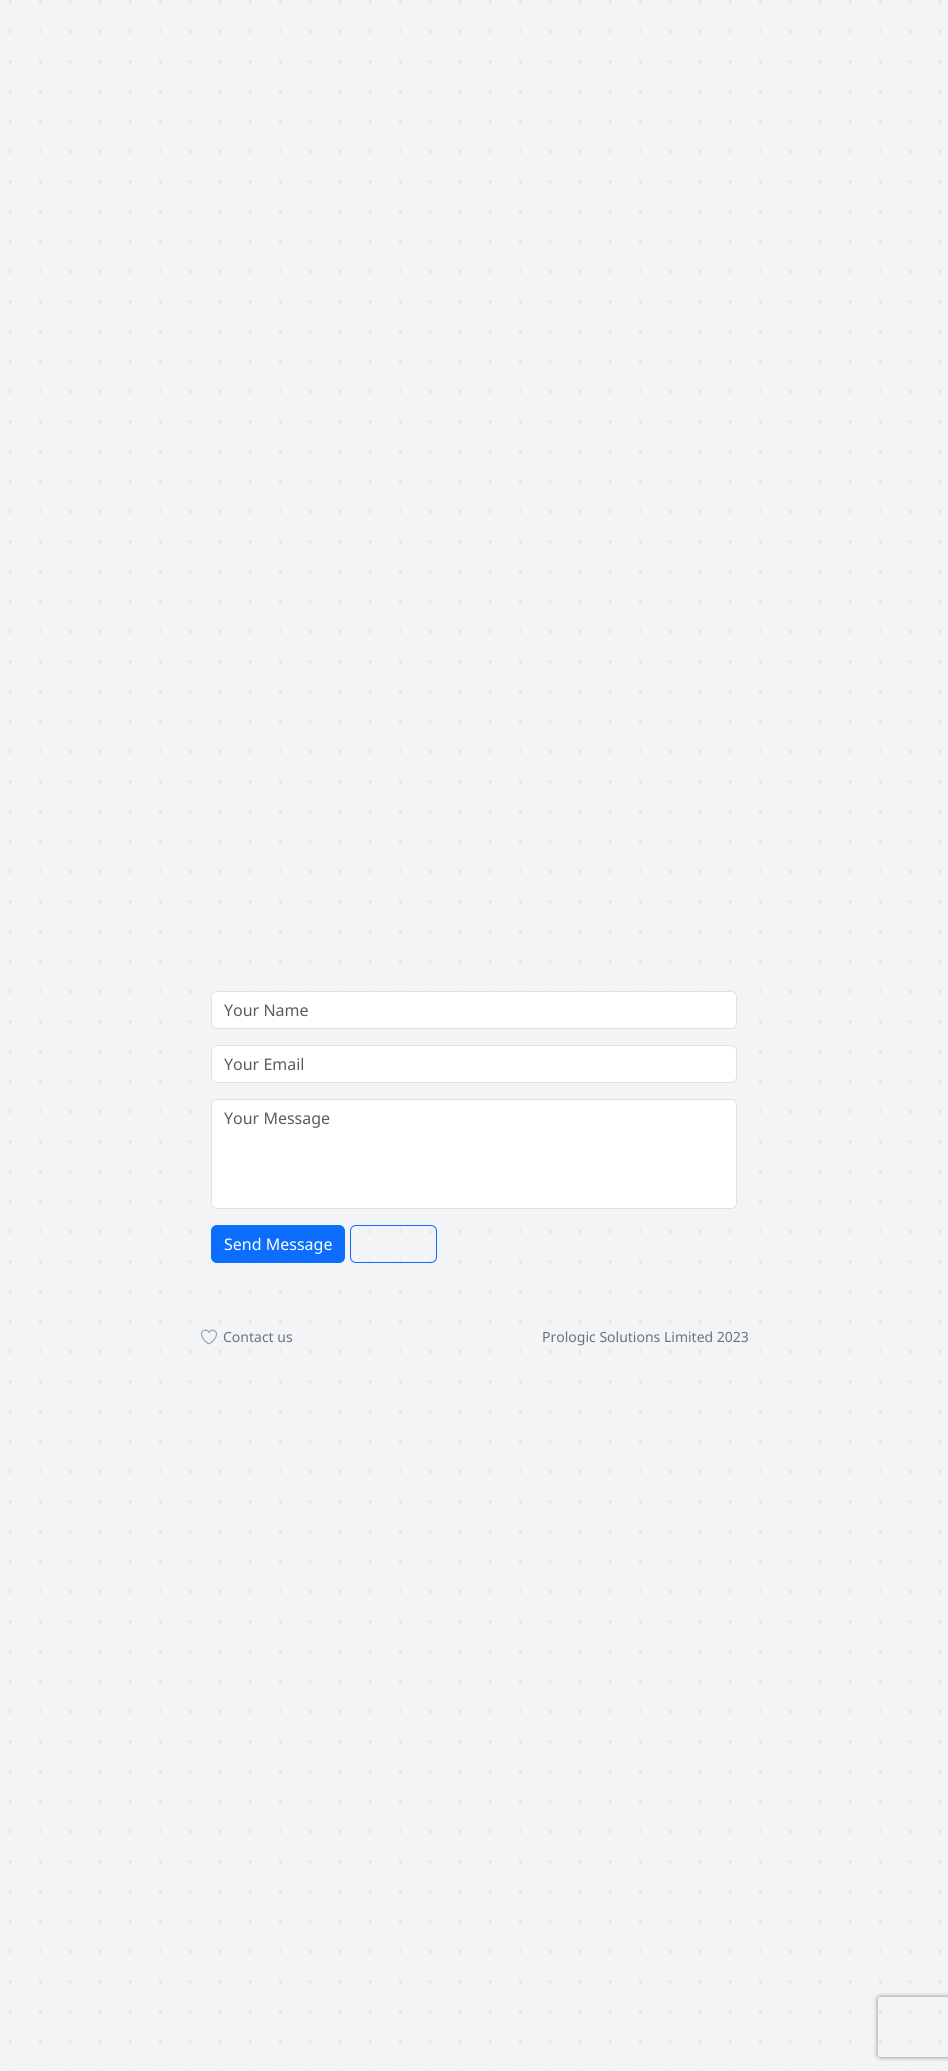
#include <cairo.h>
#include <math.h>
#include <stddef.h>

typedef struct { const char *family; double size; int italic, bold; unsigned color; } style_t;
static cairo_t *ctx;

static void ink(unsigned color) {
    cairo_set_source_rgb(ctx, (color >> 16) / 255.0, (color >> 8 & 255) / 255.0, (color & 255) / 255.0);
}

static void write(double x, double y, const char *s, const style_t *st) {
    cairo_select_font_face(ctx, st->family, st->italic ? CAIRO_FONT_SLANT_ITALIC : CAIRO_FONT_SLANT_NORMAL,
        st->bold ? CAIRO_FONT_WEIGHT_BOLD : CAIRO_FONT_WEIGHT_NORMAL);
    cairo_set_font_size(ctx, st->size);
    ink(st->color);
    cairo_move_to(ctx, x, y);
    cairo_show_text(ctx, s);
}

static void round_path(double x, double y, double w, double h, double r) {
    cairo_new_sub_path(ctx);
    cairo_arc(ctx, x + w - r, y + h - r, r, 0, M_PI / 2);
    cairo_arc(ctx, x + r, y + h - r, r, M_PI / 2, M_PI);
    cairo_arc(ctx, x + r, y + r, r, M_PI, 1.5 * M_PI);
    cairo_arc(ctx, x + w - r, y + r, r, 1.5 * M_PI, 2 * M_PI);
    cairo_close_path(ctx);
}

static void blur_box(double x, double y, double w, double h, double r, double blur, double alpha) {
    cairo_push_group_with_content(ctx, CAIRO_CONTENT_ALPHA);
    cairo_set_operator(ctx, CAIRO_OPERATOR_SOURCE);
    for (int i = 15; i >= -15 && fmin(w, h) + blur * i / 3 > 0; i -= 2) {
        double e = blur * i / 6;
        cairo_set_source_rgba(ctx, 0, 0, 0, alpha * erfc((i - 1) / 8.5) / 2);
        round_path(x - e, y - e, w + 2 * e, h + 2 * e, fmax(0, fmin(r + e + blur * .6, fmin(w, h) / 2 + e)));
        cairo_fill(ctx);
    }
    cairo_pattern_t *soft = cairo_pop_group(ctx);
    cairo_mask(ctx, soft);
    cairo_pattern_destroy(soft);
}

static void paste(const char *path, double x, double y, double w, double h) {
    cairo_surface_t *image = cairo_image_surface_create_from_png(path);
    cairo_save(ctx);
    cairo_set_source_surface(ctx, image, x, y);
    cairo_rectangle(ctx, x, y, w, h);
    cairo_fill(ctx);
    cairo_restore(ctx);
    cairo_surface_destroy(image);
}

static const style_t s1 = {"Noto Sans", 16, 0, 0, 0x595c5f};
static const style_t s2 = {"Noto Sans", 16, 0, 0, 0xffffff};
static const style_t s3 = {"Noto Sans", 14, 0, 0, 0x6b7280};

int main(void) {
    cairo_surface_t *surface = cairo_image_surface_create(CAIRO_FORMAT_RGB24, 948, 2071);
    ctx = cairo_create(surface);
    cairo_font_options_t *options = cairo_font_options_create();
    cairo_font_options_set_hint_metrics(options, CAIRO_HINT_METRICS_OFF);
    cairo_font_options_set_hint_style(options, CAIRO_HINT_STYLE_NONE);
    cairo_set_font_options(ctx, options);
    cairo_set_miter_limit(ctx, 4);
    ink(0xf3f4f6);
    cairo_paint(ctx);
    paste("pic1.png", 9, 0, 933, 2071);
    ink(0xffffff);
    round_path(211.5, 991.5, 525, 37, 5.5);
    cairo_fill_preserve(ctx);
    ink(0xdee2e6);
    cairo_set_line_width(ctx, 1);
    cairo_stroke(ctx);
    write(224, 1016, "Your Name", &s1);
    ink(0xffffff);
    round_path(211.5, 1045.5, 525, 37, 5.5);
    cairo_fill_preserve(ctx);
    ink(0xdee2e6);
    cairo_stroke(ctx);
    write(224, 1070, "Your Email", &s1);
    ink(0xffffff);
    round_path(211.5, 1099.5, 525, 109, 5.5);
    cairo_fill_preserve(ctx);
    ink(0xdee2e6);
    cairo_stroke(ctx);
    write(224, 1124, "Your Message", &s1);
    ink(0x0d6efd);
    round_path(211.5, 1225.5, 133, 37, 5.5);
    cairo_fill_preserve(ctx);
    cairo_stroke(ctx);
    write(224, 1250, "Send Message", &s2);
    round_path(350.5, 1225.5, 86, 37, 5.5);
    ink(0x0d6efd);
    cairo_stroke(ctx);
    cairo_save(ctx);
    cairo_set_fill_rule(ctx, CAIRO_FILL_RULE_EVEN_ODD);
    cairo_new_path(ctx);
    cairo_move_to(ctx, 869, 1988);
    cairo_line_to(ctx, 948, 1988);
    cairo_line_to(ctx, 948, 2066);
    cairo_line_to(ctx, 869, 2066);
    cairo_close_path(ctx);
    cairo_move_to(ctx, 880, 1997);
    cairo_line_to(ctx, 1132, 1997);
    cairo_curve_to(ctx, 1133, 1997, 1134, 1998, 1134, 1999);
    cairo_line_to(ctx, 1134, 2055);
    cairo_curve_to(ctx, 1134, 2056, 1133, 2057, 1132, 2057);
    cairo_line_to(ctx, 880, 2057);
    cairo_curve_to(ctx, 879, 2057, 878, 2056, 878, 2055);
    cairo_line_to(ctx, 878, 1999);
    cairo_curve_to(ctx, 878, 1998, 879, 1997, 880, 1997);
    cairo_close_path(ctx);
    cairo_clip(ctx);
    ink(0x808080);
    blur_box(878, 1997, 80, 60, 2, 2.5, 1);
    cairo_restore(ctx);
    paste("pic2.png", 200, 1329, 18, 16);
    write(223, 1342, "Contact us", &s3);
    write(542, 1342, "Prologic Solutions Limited 2023", &s3);
    cairo_surface_write_to_png(surface, "screenshot.png");
    cairo_font_options_destroy(options);
    cairo_destroy(ctx);
    cairo_surface_destroy(surface);
    return 0;
}
